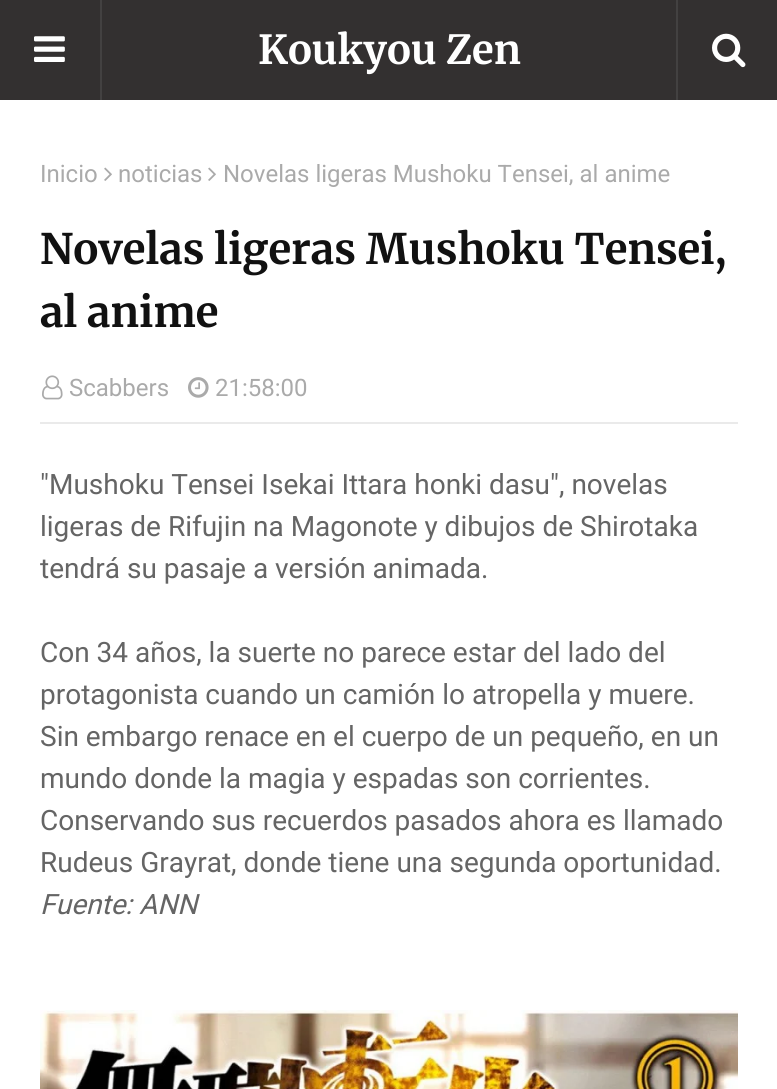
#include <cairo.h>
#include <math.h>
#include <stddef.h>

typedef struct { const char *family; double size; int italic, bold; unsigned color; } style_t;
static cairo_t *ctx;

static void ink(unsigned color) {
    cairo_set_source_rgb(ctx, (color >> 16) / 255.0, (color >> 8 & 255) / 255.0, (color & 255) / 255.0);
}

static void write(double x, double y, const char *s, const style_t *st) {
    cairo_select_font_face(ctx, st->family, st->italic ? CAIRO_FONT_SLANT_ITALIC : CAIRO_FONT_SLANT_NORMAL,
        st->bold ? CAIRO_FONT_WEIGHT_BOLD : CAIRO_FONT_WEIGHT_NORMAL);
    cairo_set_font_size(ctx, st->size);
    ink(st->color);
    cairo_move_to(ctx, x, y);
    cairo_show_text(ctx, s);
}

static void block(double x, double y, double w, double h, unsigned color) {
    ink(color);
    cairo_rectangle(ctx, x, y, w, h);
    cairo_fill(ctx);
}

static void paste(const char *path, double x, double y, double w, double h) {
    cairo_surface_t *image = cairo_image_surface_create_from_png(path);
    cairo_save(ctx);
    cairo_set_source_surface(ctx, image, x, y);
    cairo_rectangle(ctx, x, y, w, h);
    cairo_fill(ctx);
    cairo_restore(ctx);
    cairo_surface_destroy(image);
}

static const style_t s1 = {"Merriweather", 40, 0, 1, 0xffffff};
static const style_t s2 = {"Roboto", 24, 0, 0, 0xaaaaaa};
static const style_t s3 = {"Merriweather", 42, 0, 1, 0x111111};
static const style_t s4 = {"Roboto", 28, 0, 0, 0x656565};
static const style_t s5 = {"Roboto", 28, 1, 0, 0x656565};

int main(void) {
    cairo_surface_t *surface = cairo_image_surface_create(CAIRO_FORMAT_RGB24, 777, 1089);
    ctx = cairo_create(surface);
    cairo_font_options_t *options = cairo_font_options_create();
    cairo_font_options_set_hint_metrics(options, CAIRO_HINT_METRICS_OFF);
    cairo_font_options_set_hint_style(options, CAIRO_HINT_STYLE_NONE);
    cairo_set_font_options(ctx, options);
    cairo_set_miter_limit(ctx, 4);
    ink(0xffffff);
    cairo_paint(ctx);
    block(0, 0, 777, 100, 0x333030);
    block(100, 0, 2, 100, 0x434141);
    paste("pic1.png", 34, 36, 31, 26);
    write(258, 64, "Koukyou Zen", &s1);
    block(676, 0, 2, 100, 0x434141);
    paste("pic2.png", 712, 33, 34, 35);
    write(40, 182, "Inicio", &s2);
    paste("pic3.png", 104, 167, 8, 14);
    write(118, 182, "noticias", &s2);
    paste("pic3.png", 208, 167, 8, 14);
    write(223, 182, "Novelas ligeras Mushoku Tensei, al anime", &s2);
    write(40, 264, "Novelas ligeras Mushoku Tensei,", &s3);
    write(40, 327, "al anime", &s3);
    block(40, 422, 698, 2, 0xeaeaea);
    paste("pic4.png", 42, 375, 21, 25);
    write(69, 396, "Scabbers", &s2);
    paste("pic5.png", 188, 377, 21, 21);
    write(215, 396, "21:58:00", &s2);
    write(40, 494, "\"Mushoku Tensei Isekai Ittara honki dasu\", novelas", &s4);
    write(40, 536, "ligeras de Rifujin na Magonote y dibujos de Shirotaka", &s4);
    write(40, 578, "tendrá su pasaje a versión animada.", &s4);
    write(40, 662, "Con 34 años, la suerte no parece estar del lado del", &s4);
    write(40, 704, "protagonista cuando un camión lo atropella y muere.", &s4);
    write(40, 746, "Sin embargo renace en el cuerpo de un pequeño, en un", &s4);
    write(40, 788, "mundo donde la magia y espadas son corrientes.", &s4);
    write(40, 830, "Conservando sus recuerdos pasados ahora es llamado", &s4);
    write(40, 872, "Rudeus Grayrat, donde tiene una segunda oportunidad.", &s4);
    write(40, 914, "Fuente: ANN", &s5);
    paste("pic6.png", 40, 1010, 698, 79);
    cairo_surface_write_to_png(surface, "screenshot.png");
    cairo_font_options_destroy(options);
    cairo_destroy(ctx);
    cairo_surface_destroy(surface);
    return 0;
}
